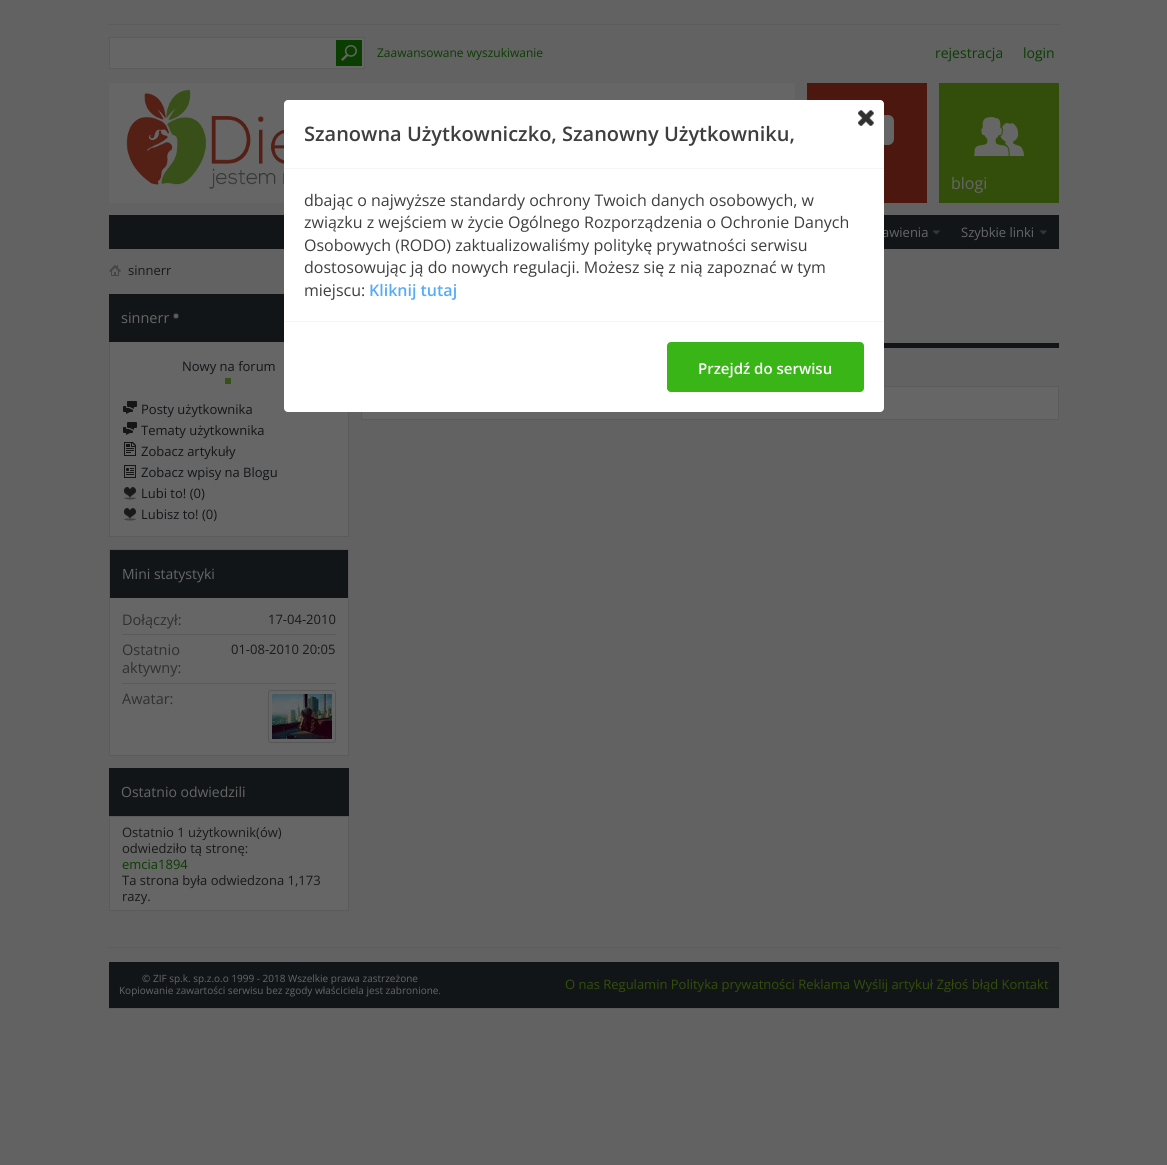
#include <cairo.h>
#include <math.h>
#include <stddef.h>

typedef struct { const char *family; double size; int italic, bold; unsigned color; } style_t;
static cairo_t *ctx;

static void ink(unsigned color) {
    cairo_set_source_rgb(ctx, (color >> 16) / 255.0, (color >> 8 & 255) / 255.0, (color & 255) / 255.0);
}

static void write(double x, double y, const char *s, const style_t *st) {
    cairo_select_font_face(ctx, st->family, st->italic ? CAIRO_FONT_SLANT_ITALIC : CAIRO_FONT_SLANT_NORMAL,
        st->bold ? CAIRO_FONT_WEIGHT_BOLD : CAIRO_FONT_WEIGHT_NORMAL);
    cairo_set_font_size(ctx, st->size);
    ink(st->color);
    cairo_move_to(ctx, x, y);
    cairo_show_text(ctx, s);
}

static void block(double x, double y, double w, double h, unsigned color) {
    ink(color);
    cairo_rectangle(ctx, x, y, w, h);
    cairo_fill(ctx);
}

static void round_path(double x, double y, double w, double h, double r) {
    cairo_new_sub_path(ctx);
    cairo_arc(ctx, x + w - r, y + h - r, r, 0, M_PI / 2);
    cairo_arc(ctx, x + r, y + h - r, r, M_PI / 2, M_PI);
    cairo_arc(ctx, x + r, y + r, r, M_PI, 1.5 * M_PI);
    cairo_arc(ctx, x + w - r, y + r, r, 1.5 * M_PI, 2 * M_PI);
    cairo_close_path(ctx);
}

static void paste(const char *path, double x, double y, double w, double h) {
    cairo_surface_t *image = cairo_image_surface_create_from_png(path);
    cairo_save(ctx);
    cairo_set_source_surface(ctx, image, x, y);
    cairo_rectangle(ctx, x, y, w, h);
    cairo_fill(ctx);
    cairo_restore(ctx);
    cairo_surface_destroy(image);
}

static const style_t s1 = {"Open Sans", 12, 0, 0, 0x0a3d00};
static const style_t s2 = {"Open Sans", 14, 0, 0, 0x0a3d00};
static const style_t s3 = {"Open Sans", 16, 0, 0, 0x666666};
static const style_t s4 = {"Open Sans", 13, 0, 0, 0x666666};
static const style_t s5 = {"Open Sans SemiBold", 20, 0, 0, 0x3e3e3e};
static const style_t s6 = {"Open Sans", 16, 0, 0, 0x3e3e3e};
static const style_t s7 = {"Open Sans SemiBold", 16, 0, 0, 0x58abf9};
static const style_t s8 = {"Open Sans SemiBold", 15, 0, 0, 0xffffff};
static const style_t s9 = {"Open Sans", 13, 0, 0, 0x191919};
static const style_t s10 = {"Open Sans", 14.5, 0, 0, 0x666666};
static const style_t s11 = {"Open Sans", 13, 0, 0, 0x121517};
static const style_t s12 = {"Open Sans", 14, 0, 0, 0x666666};
static const style_t s13 = {"Open Sans", 14.5, 0, 0, 0x303030};
static const style_t s14 = {"Open Sans", 13, 0, 0, 0x0a3d00};
static const style_t s15 = {"Open Sans", 10, 0, 0, 0x666666};
static const style_t s16 = {"Open Sans", 13, 0, 0, 0x324e0a};

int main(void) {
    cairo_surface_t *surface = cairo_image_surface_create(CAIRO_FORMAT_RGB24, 1167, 1165);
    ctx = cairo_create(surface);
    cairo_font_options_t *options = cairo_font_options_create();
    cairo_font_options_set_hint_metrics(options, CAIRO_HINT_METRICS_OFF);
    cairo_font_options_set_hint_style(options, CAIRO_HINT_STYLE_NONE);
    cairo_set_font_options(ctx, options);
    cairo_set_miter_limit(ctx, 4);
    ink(0x626262);
    cairo_paint(ctx);
    block(109, 24, 950, 1, 0x5b5b5b);
    ink(0x666666);
    cairo_rectangle(ctx, 109.5, 37.5, 255, 31);
    cairo_fill_preserve(ctx);
    ink(0x5b5b5b);
    cairo_set_line_width(ctx, 1);
    cairo_stroke(ctx);
    paste("pic1.png", 336, 40, 26, 26);
    write(377, 57, "Zaawansowane wyszukiwanie", &s1);
    write(935, 58, "rejestracja", &s2);
    write(1023, 58, "login", &s2);
    block(109, 83, 686, 120, 0x666666);
    paste("pic2.png", 126, 89, 158, 100);
    block(807, 83, 120, 120, 0x4c170e);
    paste("pic3.png", 884, 115, 10, 30);
    block(939, 83, 120, 120, 0x324e0a);
    paste("pic4.png", 974, 117, 50, 39);
    write(951, 189, "blogi", &s3);
    block(109, 215, 950, 34, 0x121517);
    write(882, 237, "awienia", &s4);
    paste("pic5.png", 932, 230, 8, 5);
    write(961, 237, "Szybkie linki", &s4);
    paste("pic5.png", 1039, 230, 8, 5);
    block(110, 342, 238, 194, 0x666666);
    cairo_rectangle(ctx, 361.5, 386.5, 697, 33);
    cairo_fill_preserve(ctx);
    ink(0x5b5b5b);
    cairo_stroke(ctx);
    ink(0xffffff);
    round_path(284, 100, 600, 312, 4);
    cairo_fill(ctx);
    block(284, 168, 600, 1, 0xf5f5f5);
    paste("pic6.png", 858, 110, 16, 16);
    write(304, 141, "Szanowna Użytkowniczko, Szanowny Użytkowniku,", &s5);
    write(304, 206, "dbając o najwyższe standardy ochrony Twoich danych osobowych, w", &s6);
    write(304, 228, "związku z wejściem w życie Ogólnego Rozporządzenia o Ochronie Danych", &s6);
    write(304, 251, "Osobowych (RODO) zaktualizowaliśmy politykę prywatności serwisu", &s6);
    write(304, 273, "dostosowując ją do nowych regulacji. Możesz się z nią zapoznać w tym", &s6);
    write(304, 296, "miejscu:", &s6);
    write(369, 296, "Kliknij tutaj", &s7);
    block(284, 321, 600, 1, 0xf5f5f5);
    ink(0x39b518);
    round_path(667.5, 342.5, 196, 49, 3.5);
    cairo_fill_preserve(ctx);
    cairo_stroke(ctx);
    write(698, 374, "Przejdź do serwisu", &s8);
    paste("pic7.png", 109, 265, 12, 11);
    write(128, 275, "sinnerr", &s9);
    block(109, 294, 175, 48, 0x121517);
    write(121, 323, "sinnerr", &s10);
    paste("pic8.png", 173, 313, 6, 6);
    block(348, 412, 1, 125, 0x5b5b5b);
    block(109, 536, 240, 1, 0x5b5b5b);
    block(109, 342, 1, 195, 0x5b5b5b);
    write(182, 371, "Nowy na forum", &s11);
    block(225, 378, 6, 6, 0x365016);
    paste("pic9.png", 123, 401, 14, 13);
    write(141, 414, "Posty użytkownika", &s11);
    paste("pic9.png", 123, 422, 14, 13);
    write(141, 435, "Tematy użytkownika", &s11);
    paste("pic10.png", 124, 442, 12, 14);
    write(141, 456, "Zobacz artykuły", &s11);
    paste("pic11.png", 124, 465, 12, 13);
    write(141, 477, "Zobacz wpisy na Blogu", &s11);
    paste("pic12.png", 124, 487, 12, 13);
    write(141, 498, "Lubi to! (0)", &s11);
    paste("pic12.png", 124, 508, 12, 13);
    write(141, 519, "Lubisz to! (0)", &s11);
    cairo_rectangle(ctx, 109.5, 549.5, 239, 206);
    ink(0x5b5b5b);
    cairo_stroke(ctx);
    block(110, 550, 238, 48, 0x121517);
    write(122, 579, "Mini statystyki", &s12);
    block(110, 598, 238, 157, 0x666666);
    block(122, 634, 214, 1, 0x5b5b5b);
    write(122, 625, "Dołączył:", &s13);
    write(268, 624, "17-04-2010", &s9);
    block(122, 683, 214, 1, 0x5b5b5b);
    write(122, 655, "Ostatnio", &s13);
    write(122, 673, "aktywny:", &s13);
    write(231, 654, "01-08-2010 20:05", &s9);
    write(122, 704, "Awatar:", &s13);
    round_path(268.5, 690.5, 67, 52, 2.5);
    ink(0x575757);
    cairo_stroke(ctx);
    paste("pic13.png", 272, 694, 60, 45);
    block(109, 768, 240, 48, 0x121517);
    write(121, 797, "Ostatnio odwiedzili", &s12);
    cairo_rectangle(ctx, 109.5, 816.5, 239, 94);
    ink(0x5b5b5b);
    cairo_stroke(ctx);
    block(110, 817, 238, 93, 0x666666);
    write(122, 837, "Ostatnio 1 użytkownik(ów)", &s9);
    write(122, 853, "odwiedziło tą stronę:", &s9);
    write(122, 869, "emcia1894", &s14);
    write(122, 885, "Ta strona była odwiedzona 1,173", &s9);
    write(122, 901, "razy.", &s9);
    block(884, 343, 175, 5, 0x121517);
    block(109, 947, 950, 1, 0x5b5b5b);
    block(109, 962, 950, 46, 0x121517);
    block(109, 1008, 950, 1, 0x5b5b5b);
    write(142, 982, "© ZIF sp.k. sp.z.o.o 1999 - 2018 Wszelkie prawa zastrzeżone", &s15);
    write(119, 994, "Kopiowanie zawartości serwisu bez zgody właściciela jest zabronione.", &s15);
    write(565, 989, "O nas Regulamin Polityka prywatności Reklama Wyślij artykuł Zgłoś błąd Kontakt", &s16);
    cairo_surface_write_to_png(surface, "screenshot.png");
    cairo_font_options_destroy(options);
    cairo_destroy(ctx);
    cairo_surface_destroy(surface);
    return 0;
}
